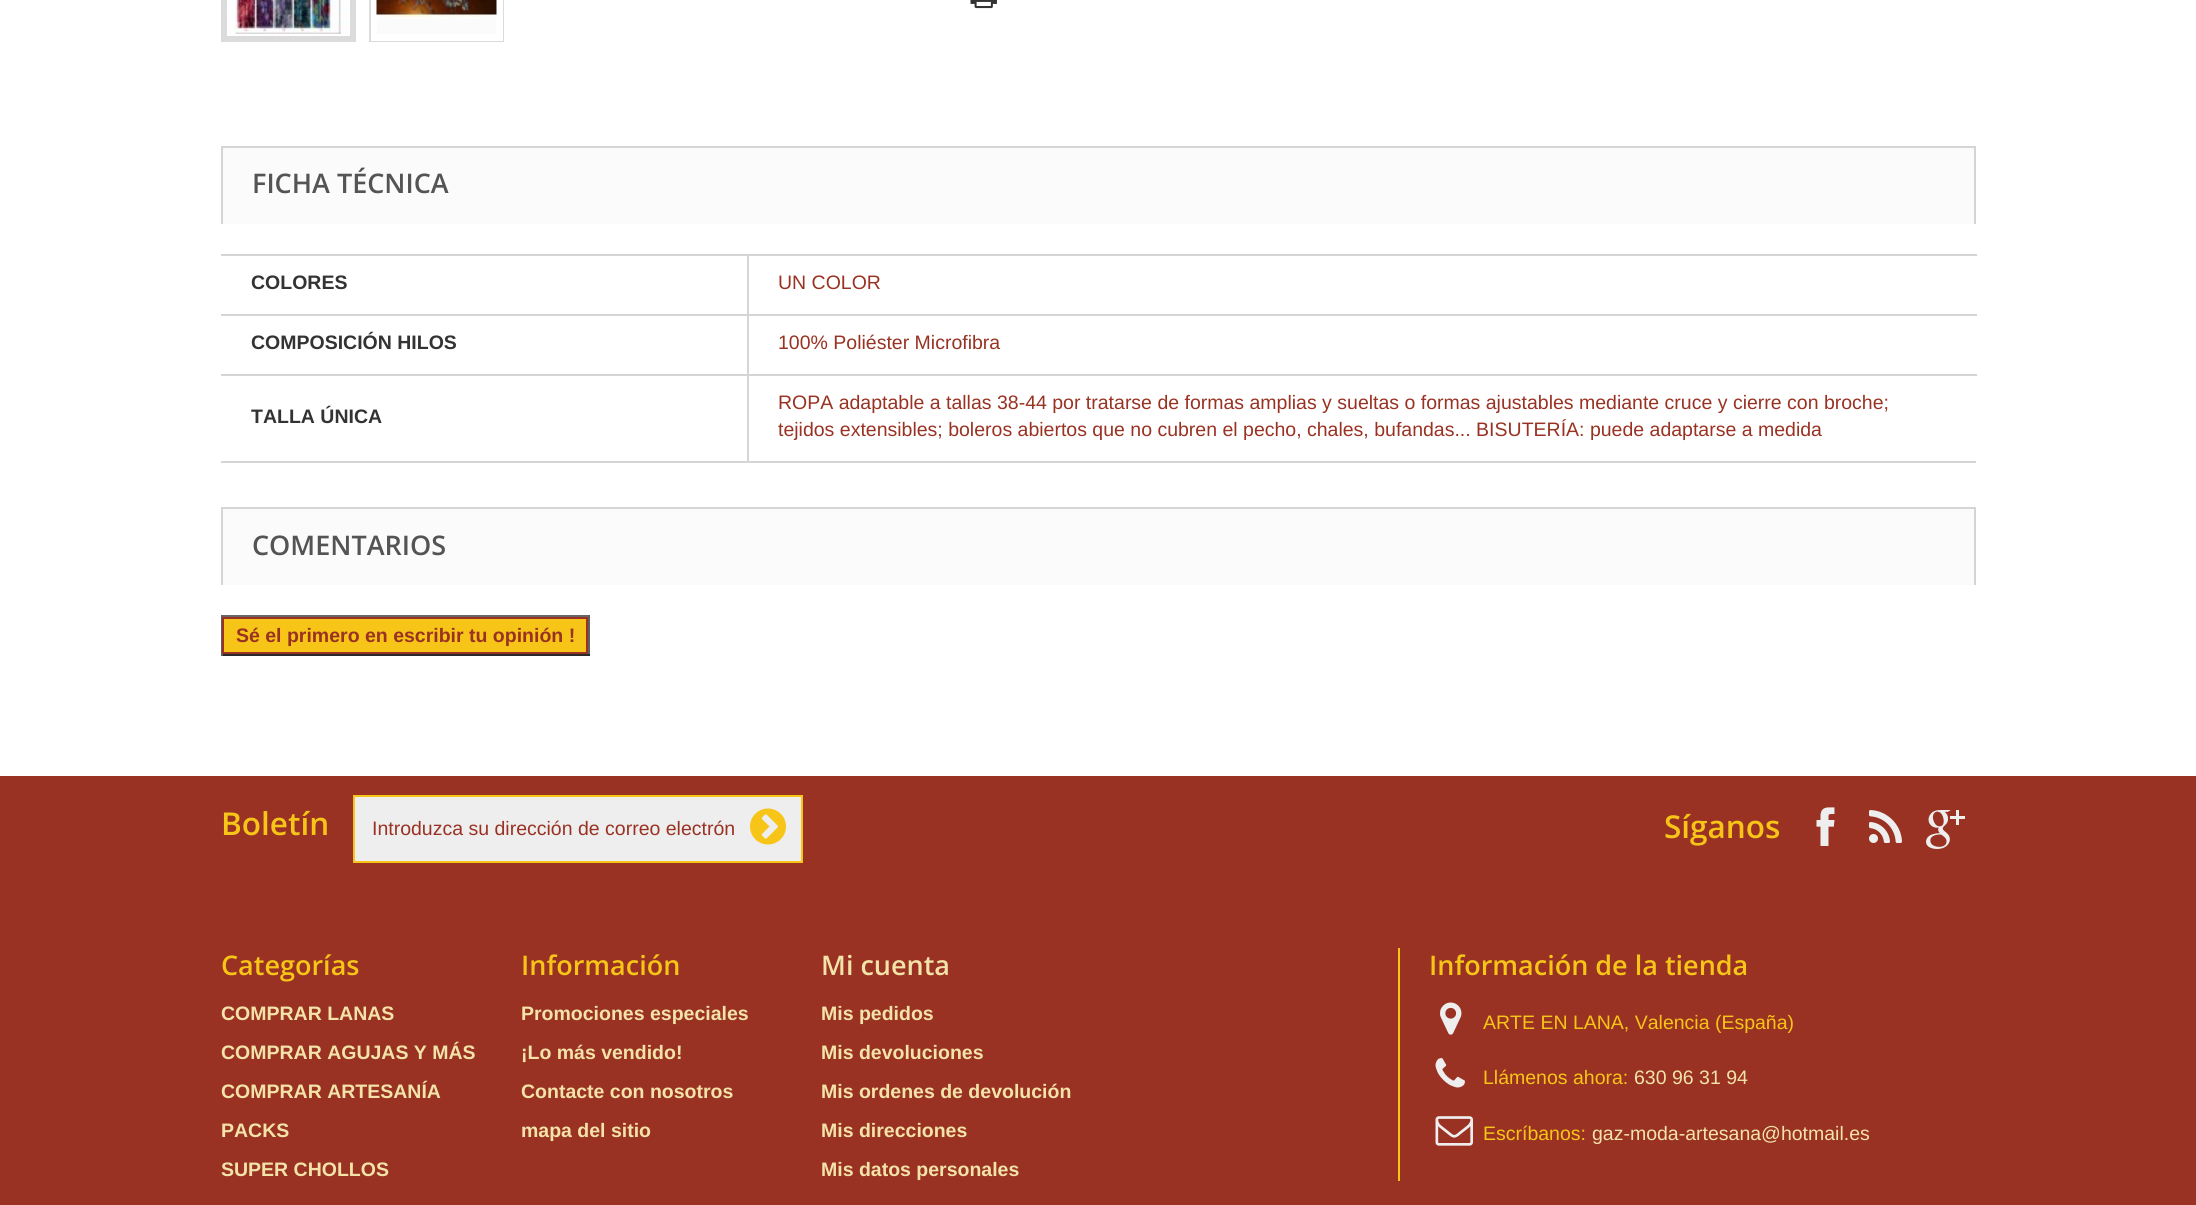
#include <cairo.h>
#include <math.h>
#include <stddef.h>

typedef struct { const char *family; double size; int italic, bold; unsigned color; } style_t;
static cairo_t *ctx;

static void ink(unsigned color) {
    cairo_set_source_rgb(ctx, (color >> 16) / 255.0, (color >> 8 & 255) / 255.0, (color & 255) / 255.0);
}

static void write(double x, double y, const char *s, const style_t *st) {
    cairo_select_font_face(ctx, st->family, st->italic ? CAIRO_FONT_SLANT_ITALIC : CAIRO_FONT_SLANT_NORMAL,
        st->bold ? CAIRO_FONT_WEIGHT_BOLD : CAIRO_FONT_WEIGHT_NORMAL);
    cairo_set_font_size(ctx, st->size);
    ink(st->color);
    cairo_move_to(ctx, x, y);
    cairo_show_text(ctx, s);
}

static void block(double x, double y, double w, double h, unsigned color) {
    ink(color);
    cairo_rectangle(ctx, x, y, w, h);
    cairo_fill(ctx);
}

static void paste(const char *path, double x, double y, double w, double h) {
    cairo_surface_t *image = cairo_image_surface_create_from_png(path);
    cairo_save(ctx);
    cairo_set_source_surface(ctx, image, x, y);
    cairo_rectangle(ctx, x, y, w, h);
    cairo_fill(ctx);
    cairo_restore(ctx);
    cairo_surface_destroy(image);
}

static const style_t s1 = {"Open Sans SemiBold", 27, 0, 0, 0x555454};
static const style_t s2 = {"Liberation Sans", 19.5, 0, 1, 0x333333};
static const style_t s3 = {"Liberation Sans", 19.5, 0, 0, 0x993222};
static const style_t s4 = {"Liberation Sans", 19.5, 0, 1, 0x993222};
static const style_t s5 = {"Open Sans SemiBold", 31.5, 0, 0, 0xf7c518};
static const style_t s6 = {"Open Sans SemiBold", 27, 0, 0, 0xf7c518};
static const style_t s7 = {"Liberation Sans", 19.5, 0, 1, 0xf3e3a9};
static const style_t s8 = {"Open Sans SemiBold", 27, 0, 0, 0xf3e3a9};
static const style_t s9 = {"Liberation Sans", 19.5, 0, 0, 0xf7c518};
static const style_t s10 = {"Liberation Sans", 19.5, 0, 0, 0xf3e3a9};

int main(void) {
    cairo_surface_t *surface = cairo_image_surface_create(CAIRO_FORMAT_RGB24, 2196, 1205);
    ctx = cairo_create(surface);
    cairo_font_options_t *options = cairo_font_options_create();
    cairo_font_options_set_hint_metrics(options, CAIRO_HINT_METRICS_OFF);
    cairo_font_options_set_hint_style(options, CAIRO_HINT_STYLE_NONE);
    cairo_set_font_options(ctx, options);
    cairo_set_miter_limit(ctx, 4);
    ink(0xffffff);
    cairo_paint(ctx);
    cairo_rectangle(ctx, 222, -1, 133, 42);
    ink(0xdbdbdb);
    cairo_stroke(ctx);
    cairo_rectangle(ctx, 224.5, -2.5, 127, 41);
    cairo_set_line_width(ctx, 5);
    cairo_stroke(ctx);
    cairo_rectangle(ctx, 228, -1, 121, 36);
    ink(0xffffff);
    cairo_set_line_width(ctx, 2);
    cairo_stroke(ctx);
    paste("pic1.png", 228, 0, 120, 34);
    cairo_rectangle(ctx, 370, -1, 133, 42);
    ink(0xdbdbdb);
    cairo_stroke(ctx);
    block(377, 19, 119, 15, 0xfbfbfb);
    cairo_rectangle(ctx, 373.5, -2.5, 127, 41);
    ink(0xffffff);
    cairo_set_line_width(ctx, 5);
    cairo_stroke(ctx);
    paste("pic2.png", 376, 0, 121, 19);
    paste("pic3.png", 970, 0, 27, 9);
    block(223, 148, 1751, 76, 0xfbfbfb);
    block(221, 146, 1755, 2, 0xd6d4d4);
    block(1974, 146, 2, 78, 0xd6d4d4);
    block(221, 146, 2, 78, 0xd6d4d4);
    write(252, 193, "FICHA TÉCNICA", &s1);
    block(221, 461, 1755, 2, 0xd6d4d4);
    block(221, 254, 1756, 2, 0xd6d4d4);
    write(251, 289, "COLORES", &s2);
    write(778, 289, "UN COLOR", &s3);
    block(221, 314, 1756, 2, 0xd6d4d4);
    write(251, 349, "COMPOSICIÓN HILOS", &s2);
    write(778, 349, "100% Poliéster Microfibra", &s3);
    block(221, 374, 1756, 2, 0xd6d4d4);
    block(747, 254, 2, 208, 0xd6d4d4);
    write(251, 423, "TALLA ÚNICA", &s2);
    write(778, 409, "ROPA adaptable a tallas 38-44 por tratarse de formas amplias y sueltas o formas ajustables mediante cruce y cierre con broche;", &s3);
    write(778, 436, "tejidos extensibles; boleros abiertos que no cubren el pecho, chales, bufandas... BISUTERÍA: puede adaptarse a medida", &s3);
    block(223, 509, 1751, 76, 0xfbfbfb);
    block(221, 507, 1755, 2, 0xd6d4d4);
    block(1974, 507, 2, 78, 0xd6d4d4);
    block(221, 507, 2, 78, 0xd6d4d4);
    write(252, 555, "COMENTARIOS", &s1);
    block(224, 619, 362, 33, 0xf7c518);
    block(221, 615, 369, 2, 0x666666);
    block(588, 615, 2, 41, 0x5f5f5f);
    block(221, 654, 369, 2, 0x292929);
    block(221, 615, 2, 41, 0x5f5f5f);
    cairo_rectangle(ctx, 223, 618, 364, 35);
    ink(0x993222);
    cairo_set_line_width(ctx, 2);
    cairo_stroke(ctx);
    write(236, 642, "Sé el primero en escribir tu opinión !", &s4);
    block(0, 776, 2196, 429, 0x993222);
    write(221, 835, "Boletín", &s5);
    ink(0xeeeeee);
    cairo_rectangle(ctx, 354, 796, 448, 66);
    cairo_fill_preserve(ctx);
    ink(0xf7c518);
    cairo_stroke(ctx);
    write(372, 835, "Introduzca su dirección de correo electrón", &s3);
    paste("pic4.png", 750, 808, 36, 37);
    write(1664, 838, "Síganos", &s5);
    paste("pic5.png", 1816, 807, 19, 39);
    paste("pic6.png", 1869, 810, 33, 33);
    paste("pic7.png", 1926, 810, 39, 39);
    write(221, 975, "Categorías", &s6);
    write(221, 1020, "COMPRAR LANAS", &s7);
    write(221, 1059, "COMPRAR AGUJAS Y MÁS", &s7);
    write(221, 1098, "COMPRAR ARTESANÍA", &s7);
    write(221, 1137, "PACKS", &s7);
    write(221, 1176, "SUPER CHOLLOS", &s7);
    write(521, 975, "Información", &s6);
    write(521, 1020, "Promociones especiales", &s7);
    write(521, 1059, "¡Lo más vendido!", &s7);
    write(521, 1098, "Contacte con nosotros", &s7);
    write(521, 1137, "mapa del sitio", &s7);
    write(821, 975, "Mi cuenta", &s8);
    write(821, 1020, "Mis pedidos", &s7);
    write(821, 1059, "Mis devoluciones", &s7);
    write(821, 1098, "Mis ordenes de devolución", &s7);
    write(821, 1137, "Mis direcciones", &s7);
    write(821, 1176, "Mis datos personales", &s7);
    block(1398, 948, 2, 233, 0xf7c518);
    write(1429, 975, "Información de la tienda", &s6);
    paste("pic8.png", 1440, 1002, 22, 33);
    write(1483, 1029, "ARTE EN LANA, Valencia (España)", &s9);
    paste("pic9.png", 1435, 1058, 30, 30);
    write(1483, 1084, "Llámenos ahora:", &s9);
    write(1634, 1084, "630 96 31 94", &s10);
    paste("pic10.png", 1435, 1116, 38, 30);
    write(1483, 1140, "Escríbanos:", &s9);
    write(1592, 1140, "gaz-moda-artesana@hotmail.es", &s10);
    cairo_surface_write_to_png(surface, "screenshot.png");
    cairo_font_options_destroy(options);
    cairo_destroy(ctx);
    cairo_surface_destroy(surface);
    return 0;
}
